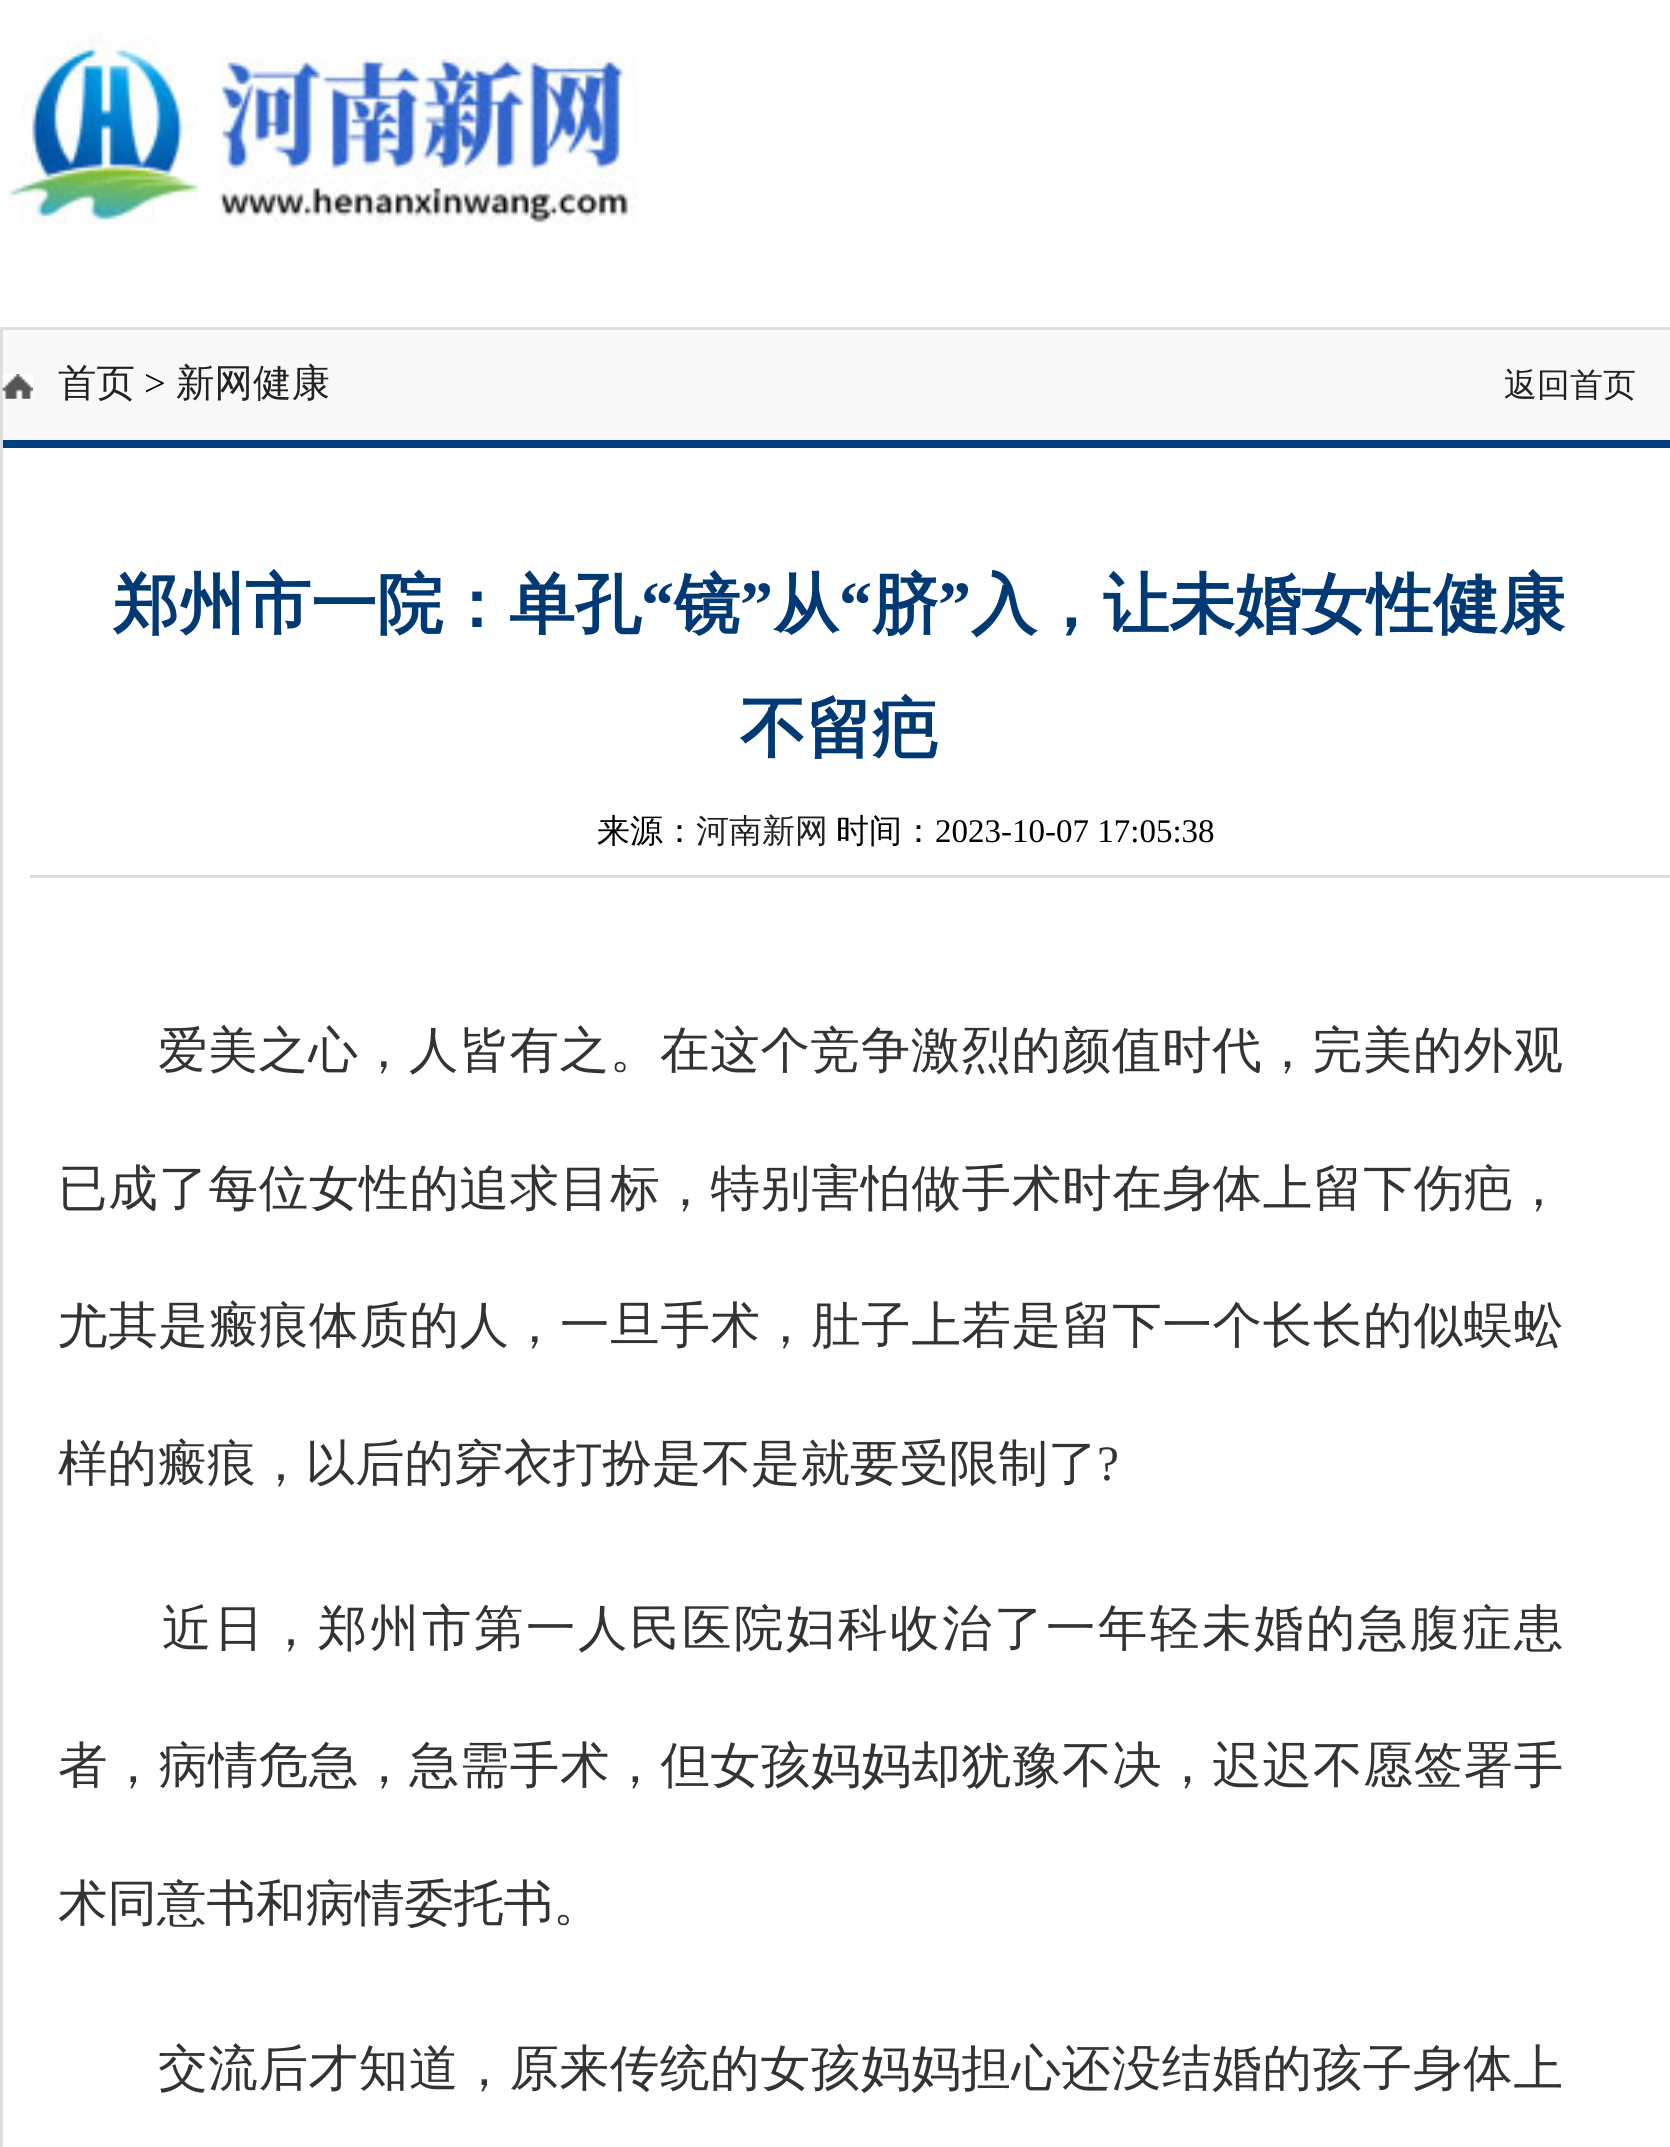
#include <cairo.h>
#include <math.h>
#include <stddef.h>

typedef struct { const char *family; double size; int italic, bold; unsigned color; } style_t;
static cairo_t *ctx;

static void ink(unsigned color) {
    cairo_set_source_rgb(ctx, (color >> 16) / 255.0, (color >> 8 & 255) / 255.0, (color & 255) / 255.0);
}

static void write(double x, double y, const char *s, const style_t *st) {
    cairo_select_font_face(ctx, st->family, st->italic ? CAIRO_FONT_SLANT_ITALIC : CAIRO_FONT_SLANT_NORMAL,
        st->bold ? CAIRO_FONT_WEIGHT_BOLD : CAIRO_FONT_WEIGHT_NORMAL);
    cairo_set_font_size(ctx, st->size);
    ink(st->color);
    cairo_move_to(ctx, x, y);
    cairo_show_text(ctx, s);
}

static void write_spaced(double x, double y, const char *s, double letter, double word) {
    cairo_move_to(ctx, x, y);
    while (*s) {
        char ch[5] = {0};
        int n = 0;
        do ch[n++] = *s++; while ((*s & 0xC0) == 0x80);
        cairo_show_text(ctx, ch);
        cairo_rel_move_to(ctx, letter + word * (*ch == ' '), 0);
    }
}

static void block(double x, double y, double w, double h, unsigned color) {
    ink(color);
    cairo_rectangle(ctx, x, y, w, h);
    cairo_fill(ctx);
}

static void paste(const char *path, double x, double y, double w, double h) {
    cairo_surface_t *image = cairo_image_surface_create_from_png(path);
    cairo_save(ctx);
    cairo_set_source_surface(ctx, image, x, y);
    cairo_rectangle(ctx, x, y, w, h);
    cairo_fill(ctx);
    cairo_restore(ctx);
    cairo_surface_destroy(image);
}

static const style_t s1 = {"WenQuanYi Zen Hei Medium", 38.5, 0, 0, 0x222222};
static const style_t s2 = {"Liberation Serif", 38.5, 0, 0, 0x000000};
static const style_t s3 = {"WenQuanYi Zen Hei Medium", 33, 0, 0, 0x222222};
static const style_t s4 = {"WenQuanYi Zen Hei", 66, 0, 1, 0x003973};
static const style_t s5 = {"Liberation Serif", 66, 0, 1, 0x003973};
static const style_t s6 = {"WenQuanYi Zen Hei Medium", 33, 0, 0, 0x000000};
static const style_t s7 = {"Liberation Serif", 33, 0, 0, 0x000000};
static const style_t s8 = {"WenQuanYi Zen Hei Medium", 49.5, 0, 0, 0x333333};
static const style_t s9 = {"Liberation Serif", 49.5, 0, 0, 0x333333};

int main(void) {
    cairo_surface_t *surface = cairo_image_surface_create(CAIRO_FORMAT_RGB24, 1670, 2147);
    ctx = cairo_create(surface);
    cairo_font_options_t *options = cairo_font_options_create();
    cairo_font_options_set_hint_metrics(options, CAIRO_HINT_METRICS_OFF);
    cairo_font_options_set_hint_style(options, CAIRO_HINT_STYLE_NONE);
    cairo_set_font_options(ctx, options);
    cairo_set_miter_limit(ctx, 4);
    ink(0xffffff);
    cairo_paint(ctx);
    paste("pic1.png", 0, 33, 638, 192);
    cairo_rectangle(ctx, 1.5, 328.5, 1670, 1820);
    ink(0xdedede);
    cairo_set_line_width(ctx, 3);
    cairo_stroke(ctx);
    block(3, 330, 1667, 110, 0xf8f8f8);
    block(3, 440, 1667, 8, 0x003e7d);
    paste("pic2.png", 2, 374, 31, 25);
    write(58, 396, "首页", &s1);
    write(144, 396, ">", &s2);
    write(176, 396, "新网健康", &s1);
    write(1504, 396, "返回首页", &s3);
    write(113, 627, "郑州市一院：单孔", &s4);
    write(641, 627, "“", &s5);
    write(674, 627, "镜", &s4);
    write(740, 627, "”", &s5);
    write(773, 627, "从", &s4);
    write(839, 627, "“", &s5);
    write(872, 627, "脐", &s4);
    write(938, 627, "”", &s5);
    write(971, 627, "入，让未婚女性健康", &s4);
    write(740, 751, "不留疤", &s4);
    block(30, 875, 1640, 3, 0xdedede);
    write(597, 842, "来源：", &s6);
    write(696, 842, "河南新网", &s3);
    write(836, 842, "时间：", &s6);
    write(935, 842, "2023-10-07 17:05:38", &s7);
    cairo_select_font_face(ctx, "WenQuanYi Zen Hei Medium", CAIRO_FONT_SLANT_NORMAL, CAIRO_FONT_WEIGHT_NORMAL);
    cairo_set_font_size(ctx, 49.5);
    ink(0x333333);
    write_spaced(158, 1067, "爱美之心，人皆有之。在这个竞争激烈的颜值时代，完美的外观", 0.7, 0);
    write_spaced(58, 1205, "已成了每位女性的追求目标，特别害怕做手术时在身体上留下伤疤，", 0.7, 0);
    write_spaced(58, 1342, "尤其是瘢痕体质的人，一旦手术，肚子上若是留下一个长长的似蜈蚣", 0.7, 0);
    write(58, 1480, "样的瘢痕，以后的穿衣打扮是不是就要受限制了", &s8);
    write(1097, 1480, "?", &s9);
    cairo_select_font_face(ctx, "WenQuanYi Zen Hei Medium", CAIRO_FONT_SLANT_NORMAL, CAIRO_FONT_WEIGHT_NORMAL);
    write_spaced(162, 1645, "近日，郑州市第一人民医院妇科收治了一年轻未婚的急腹症患", 2.5, 0);
    write_spaced(58, 1782, "者，病情危急，急需手术，但女孩妈妈却犹豫不决，迟迟不愿签署手", 0.7, 0);
    write(58, 1920, "术同意书和病情委托书。", &s8);
    write_spaced(158, 2085, "交流后才知道，原来传统的女孩妈妈担心还没结婚的孩子身体上", 0.7, 0);
    cairo_surface_write_to_png(surface, "screenshot.png");
    cairo_font_options_destroy(options);
    cairo_destroy(ctx);
    cairo_surface_destroy(surface);
    return 0;
}
